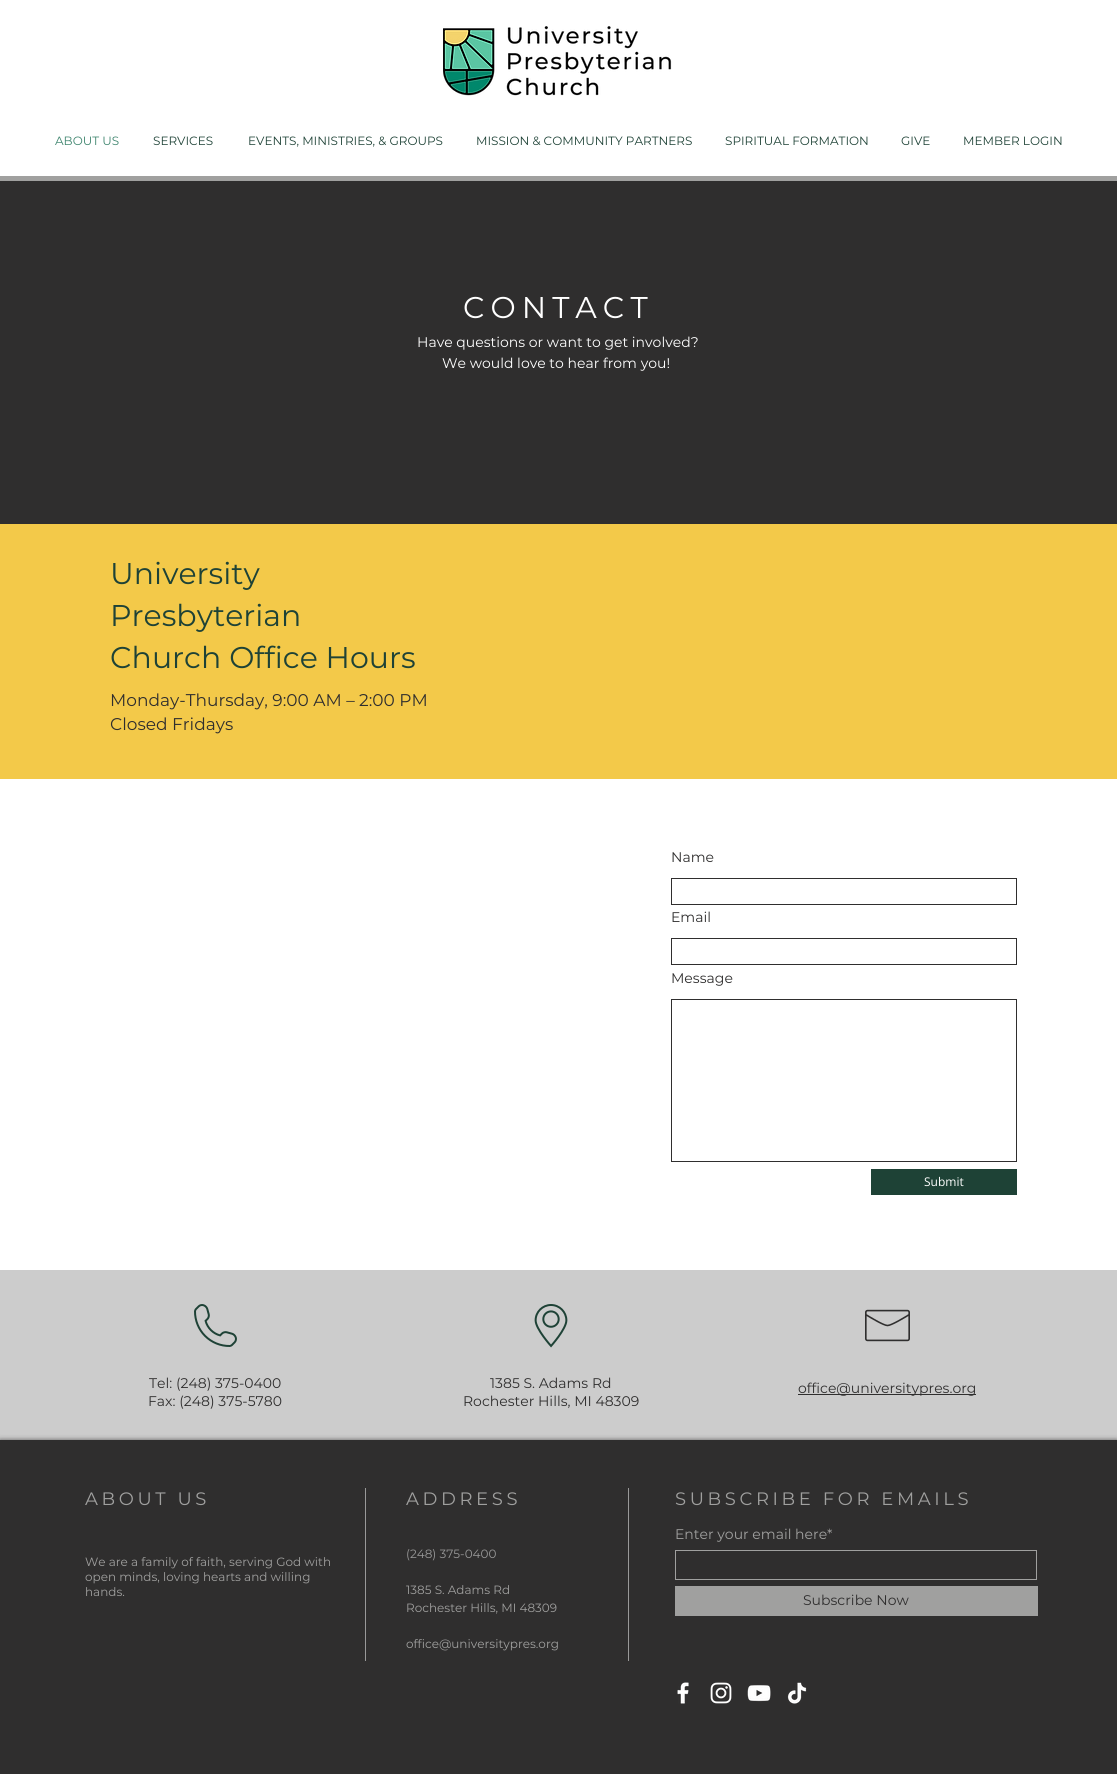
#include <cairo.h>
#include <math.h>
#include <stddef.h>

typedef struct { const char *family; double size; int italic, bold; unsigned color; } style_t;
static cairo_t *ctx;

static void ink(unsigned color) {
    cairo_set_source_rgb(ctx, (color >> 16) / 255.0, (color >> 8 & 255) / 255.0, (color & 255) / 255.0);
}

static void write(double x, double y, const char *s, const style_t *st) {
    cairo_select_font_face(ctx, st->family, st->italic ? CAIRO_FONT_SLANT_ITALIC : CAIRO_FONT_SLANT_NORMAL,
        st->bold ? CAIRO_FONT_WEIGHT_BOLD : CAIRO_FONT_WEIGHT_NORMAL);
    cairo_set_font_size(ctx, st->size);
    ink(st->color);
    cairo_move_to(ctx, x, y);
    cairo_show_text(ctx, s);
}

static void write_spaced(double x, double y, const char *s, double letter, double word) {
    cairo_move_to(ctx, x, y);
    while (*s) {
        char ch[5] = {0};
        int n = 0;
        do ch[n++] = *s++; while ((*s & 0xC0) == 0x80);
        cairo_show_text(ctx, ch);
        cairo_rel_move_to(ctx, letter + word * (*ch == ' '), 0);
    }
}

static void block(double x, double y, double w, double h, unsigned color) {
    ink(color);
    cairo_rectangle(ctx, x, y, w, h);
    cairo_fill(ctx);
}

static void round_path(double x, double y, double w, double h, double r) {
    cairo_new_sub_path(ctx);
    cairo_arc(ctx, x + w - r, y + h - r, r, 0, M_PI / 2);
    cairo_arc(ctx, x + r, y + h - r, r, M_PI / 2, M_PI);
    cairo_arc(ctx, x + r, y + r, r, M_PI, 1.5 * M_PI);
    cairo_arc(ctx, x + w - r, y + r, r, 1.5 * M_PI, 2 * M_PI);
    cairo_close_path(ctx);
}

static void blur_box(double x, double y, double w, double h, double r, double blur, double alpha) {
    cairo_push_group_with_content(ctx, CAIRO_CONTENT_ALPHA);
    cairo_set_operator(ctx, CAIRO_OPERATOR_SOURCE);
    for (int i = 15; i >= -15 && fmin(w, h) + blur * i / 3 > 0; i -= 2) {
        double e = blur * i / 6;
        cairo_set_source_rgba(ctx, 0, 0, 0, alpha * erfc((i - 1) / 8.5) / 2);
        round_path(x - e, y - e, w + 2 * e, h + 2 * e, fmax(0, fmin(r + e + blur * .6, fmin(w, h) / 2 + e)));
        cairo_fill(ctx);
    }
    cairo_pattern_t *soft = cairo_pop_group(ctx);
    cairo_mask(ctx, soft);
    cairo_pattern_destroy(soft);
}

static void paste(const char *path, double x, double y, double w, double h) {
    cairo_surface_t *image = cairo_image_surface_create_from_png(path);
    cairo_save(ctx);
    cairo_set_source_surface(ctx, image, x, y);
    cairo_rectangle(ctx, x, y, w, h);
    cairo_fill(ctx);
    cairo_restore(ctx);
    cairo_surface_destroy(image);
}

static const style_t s1 = {"Montserrat", 12, 0, 0, 0x3d846d};
static const style_t s2 = {"Montserrat", 12, 0, 0, 0x1e4236};
static const style_t s3 = {"Montserrat", 14, 0, 0, 0xffffff};
static const style_t s4 = {"Montserrat", 30, 0, 0, 0x1e4236};
static const style_t s5 = {"Montserrat", 17, 0, 0, 0x2f2e2e};
static const style_t s6 = {"Montserrat", 14, 0, 0, 0x2f2e2e};
static const style_t s7 = {"Open Sans", 12, 0, 0, 0xffffff};
static const style_t s8 = {"Montserrat", 14, 0, 0, 0xa0a09f};
static const style_t s9 = {"Montserrat", 12, 0, 0, 0xa0a09f};
static const style_t s10 = {"Montserrat", 12, 0, 0, 0x999999};

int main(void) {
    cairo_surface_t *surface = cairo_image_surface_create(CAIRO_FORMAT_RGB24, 1117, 1774);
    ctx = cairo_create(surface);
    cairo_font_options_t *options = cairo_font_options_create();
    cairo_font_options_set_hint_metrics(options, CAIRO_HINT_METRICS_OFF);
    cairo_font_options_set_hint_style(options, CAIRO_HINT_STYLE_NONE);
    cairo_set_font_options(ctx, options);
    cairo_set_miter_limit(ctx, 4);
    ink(0xffffff);
    cairo_paint(ctx);
    paste("pic1.png", 443, 26, 229, 70);
    write(55, 145, "ABOUT US", &s1);
    write(153, 145, "SERVICES", &s2);
    write(248, 145, "EVENTS, MINISTRIES, & GROUPS", &s2);
    write(476, 145, "MISSION & COMMUNITY PARTNERS", &s2);
    write(725, 145, "SPIRITUAL FORMATION", &s2);
    write(901, 145, "GIVE", &s2);
    write(963, 145, "MEMBER LOGIN", &s2);
    block(0, 176, 1117, 5, 0xa0a09f);
    block(0, 181, 1117, 343, 0x2f2e2e);
    cairo_set_font_size(ctx, 30);
    ink(0xffffff);
    write_spaced(463, 318, "CONTACT", 6, 0);
    write(417, 347, "Have questions or want to get involved?", &s3);
    write(442, 368, "We would love to hear from you!", &s3);
    block(0, 524, 1117, 255, 0xf3c949);
    write(110, 584, "University", &s4);
    write(110, 626, "Presbyterian", &s4);
    write(110, 668, "Church Office Hours", &s4);
    write(110, 706, "Monday-Thursday, 9:00 AM – 2:00 PM", &s5);
    write(110, 730, "Closed Fridays", &s5);
    write(671, 862, "Name", &s6);
    cairo_rectangle(ctx, 671.5, 878.5, 345, 26);
    cairo_set_line_width(ctx, 1);
    cairo_stroke(ctx);
    write(671, 922, "Email", &s6);
    cairo_rectangle(ctx, 671.5, 938.5, 345, 26);
    cairo_stroke(ctx);
    write(671, 983, "Message", &s6);
    cairo_rectangle(ctx, 671.5, 999.5, 345, 162);
    cairo_stroke(ctx);
    block(871, 1169, 146, 26, 0x1e4236);
    write(924, 1186, "Submit", &s7);
    block(0, 1270, 1117, 170, 0xcccccc);
    paste("pic2.png", 194, 1304, 43, 43);
    paste("pic3.png", 534, 1304, 34, 44);
    paste("pic4.png", 865, 1309, 45, 33);
    write(149, 1388, "Tel: (248) 375-0400", &s6);
    write(148, 1406, "Fax: (248) 375-5780", &s6);
    write(490, 1388, "1385 S. Adams Rd", &s6);
    write(463, 1406, "Rochester Hills, MI 48309", &s6);
    block(798, 1394, 178, 1, 0x2f2e2e);
    write(798, 1393, "office@universitypres.org", &s6);
    ink(0x2f2e2e);
    blur_box(0, 1440, 1117, 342, 0, 2.5, 0.72);
    block(0, 1440, 1117, 334, 0x2f2e2e);
    cairo_set_font_size(ctx, 18);
    ink(0xa0a09f);
    write_spaced(85, 1505, "ABOUT US", 3.6, 0);
    block(365, 1488, 1, 173, 0x999999);
    ink(0xa0a09f);
    write_spaced(406, 1505, "ADDRESS", 3.6, 0);
    block(628, 1488, 1, 173, 0x999999);
    ink(0xa0a09f);
    write_spaced(675, 1505, "SUBSCRIBE FOR EMAILS", 3.6, 0);
    write(675, 1539, "Enter your email here*", &s8);
    cairo_rectangle(ctx, 675.5, 1550.5, 361, 29);
    cairo_stroke(ctx);
    block(675, 1586, 363, 30, 0xa0a09f);
    write(803, 1605, "Subscribe Now", &s6);
    write(85, 1566, "We are a family of faith, serving God with", &s9);
    write(85, 1581, "open minds, loving hearts and willing", &s9);
    write(85, 1596, "hands.", &s9);
    write(406, 1558, "(248) 375-0400", &s10);
    write(406, 1594, "1385 S. Adams Rd", &s9);
    write(406, 1612, "Rochester Hills, MI 48309", &s9);
    write(406, 1648, "office@universitypres.org", &s9);
    paste("pic5.png", 677, 1682, 12, 22);
    paste("pic6.png", 710, 1682, 22, 22);
    paste("pic7.png", 747, 1685, 24, 17);
    paste("pic8.png", 787, 1682, 20, 22);
    cairo_surface_write_to_png(surface, "screenshot.png");
    cairo_font_options_destroy(options);
    cairo_destroy(ctx);
    cairo_surface_destroy(surface);
    return 0;
}
